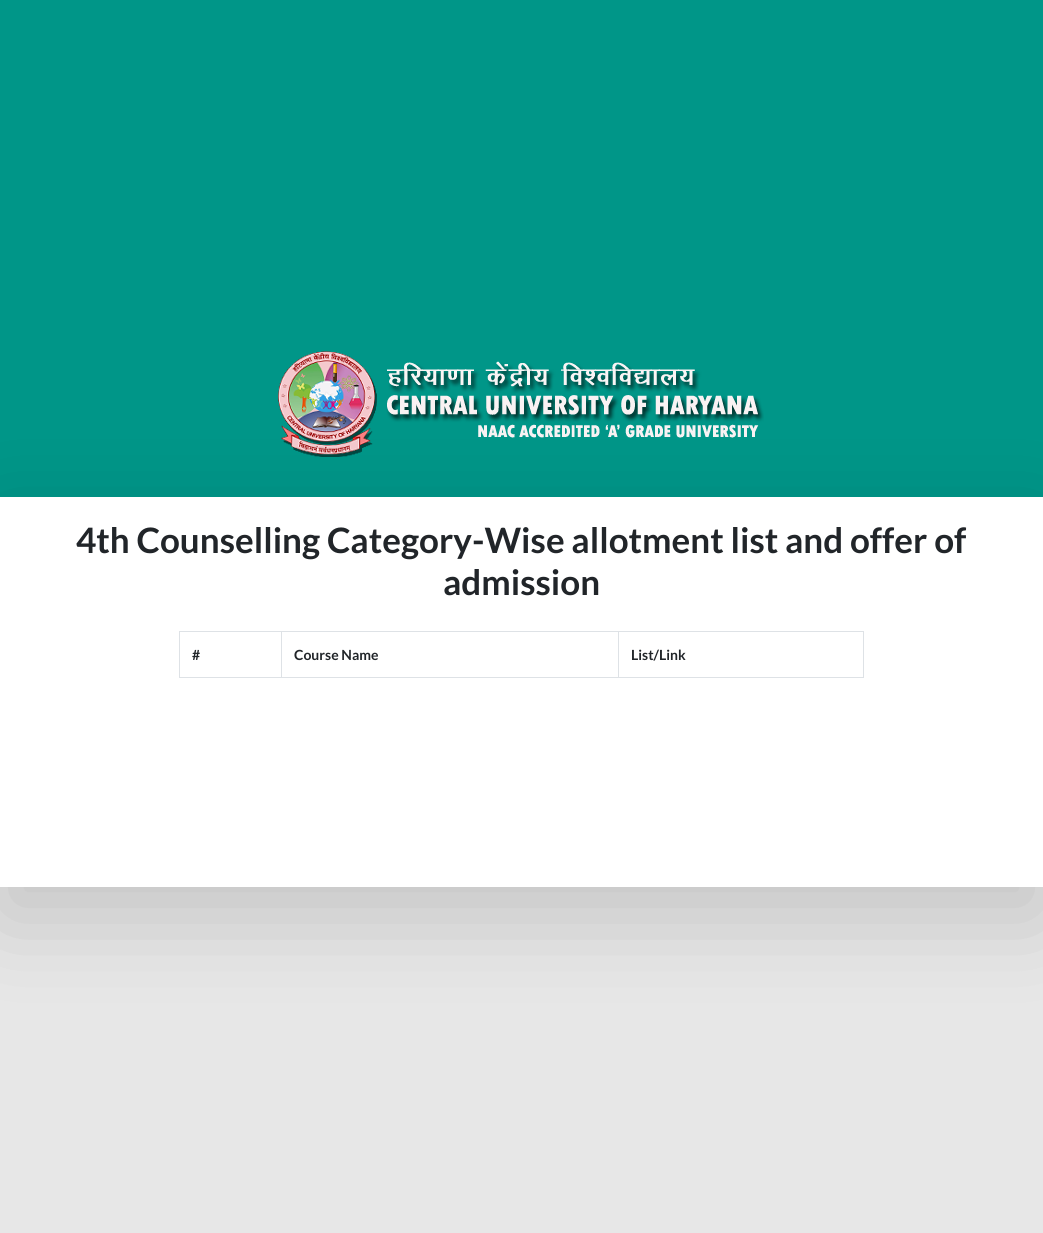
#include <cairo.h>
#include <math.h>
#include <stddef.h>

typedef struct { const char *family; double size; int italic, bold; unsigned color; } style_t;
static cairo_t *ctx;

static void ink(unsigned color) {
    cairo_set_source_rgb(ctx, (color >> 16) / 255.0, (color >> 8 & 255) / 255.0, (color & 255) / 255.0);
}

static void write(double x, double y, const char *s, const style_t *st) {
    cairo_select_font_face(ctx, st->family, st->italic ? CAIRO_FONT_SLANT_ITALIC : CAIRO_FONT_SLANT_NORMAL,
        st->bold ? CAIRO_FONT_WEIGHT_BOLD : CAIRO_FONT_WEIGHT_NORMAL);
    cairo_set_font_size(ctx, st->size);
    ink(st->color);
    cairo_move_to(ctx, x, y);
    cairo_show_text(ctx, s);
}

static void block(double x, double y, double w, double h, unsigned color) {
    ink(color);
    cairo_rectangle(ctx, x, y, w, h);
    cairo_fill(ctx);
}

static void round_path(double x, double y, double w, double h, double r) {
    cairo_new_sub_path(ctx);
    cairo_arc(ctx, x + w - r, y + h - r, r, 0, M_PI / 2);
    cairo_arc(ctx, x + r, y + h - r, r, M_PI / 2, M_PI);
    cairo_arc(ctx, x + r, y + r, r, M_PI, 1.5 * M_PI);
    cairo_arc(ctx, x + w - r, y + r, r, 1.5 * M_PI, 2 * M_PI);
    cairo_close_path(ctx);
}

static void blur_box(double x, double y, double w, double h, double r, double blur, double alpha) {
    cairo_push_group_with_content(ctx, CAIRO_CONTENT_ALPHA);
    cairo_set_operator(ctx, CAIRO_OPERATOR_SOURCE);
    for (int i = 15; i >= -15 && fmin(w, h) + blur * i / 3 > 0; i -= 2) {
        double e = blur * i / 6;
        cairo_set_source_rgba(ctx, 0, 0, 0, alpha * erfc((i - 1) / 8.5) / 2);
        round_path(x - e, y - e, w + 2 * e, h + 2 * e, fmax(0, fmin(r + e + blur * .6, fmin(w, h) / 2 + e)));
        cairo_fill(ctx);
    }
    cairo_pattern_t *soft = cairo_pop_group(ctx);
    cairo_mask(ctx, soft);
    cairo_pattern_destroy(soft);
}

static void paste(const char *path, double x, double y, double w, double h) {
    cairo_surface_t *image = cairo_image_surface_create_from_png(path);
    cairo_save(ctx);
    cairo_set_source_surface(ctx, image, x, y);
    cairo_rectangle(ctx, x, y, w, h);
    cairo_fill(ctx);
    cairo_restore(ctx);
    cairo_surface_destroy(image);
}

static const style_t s1 = {"Lato", 35, 0, 1, 0x212529};
static const style_t s2 = {"Lato", 14, 0, 1, 0x212529};

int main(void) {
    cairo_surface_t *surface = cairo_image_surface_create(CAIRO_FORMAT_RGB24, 1043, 1233);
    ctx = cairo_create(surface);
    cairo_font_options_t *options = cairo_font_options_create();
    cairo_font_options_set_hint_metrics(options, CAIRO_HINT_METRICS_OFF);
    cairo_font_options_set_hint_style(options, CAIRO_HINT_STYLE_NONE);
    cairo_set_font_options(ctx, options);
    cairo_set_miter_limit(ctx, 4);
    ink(0xe7e7e7);
    cairo_paint(ctx);
    block(0, 0, 1043, 497, 0x009688);
    paste("pic1.png", 278, 351, 486, 106);
    ink(0x000000);
    blur_box(0, 526, 1043, 390, 0, 47.5, 0.16);
    block(0, 497, 1043, 390, 0xffffff);
    write(76, 553, "4th Counselling Category-Wise allotment list and offer of", &s1);
    write(443, 595, "admission", &s1);
    block(179, 631, 685, 1, 0xdee2e6);
    block(863, 631, 1, 47, 0xdee2e6);
    block(179, 677, 685, 1, 0xdee2e6);
    block(179, 631, 1, 47, 0xdee2e6);
    write(192, 660, "#", &s2);
    block(281, 631, 1, 47, 0xdee2e6);
    write(294, 660, "Course Name", &s2);
    block(618, 631, 1, 47, 0xdee2e6);
    write(631, 660, "List/Link", &s2);
    cairo_surface_write_to_png(surface, "screenshot.png");
    cairo_font_options_destroy(options);
    cairo_destroy(ctx);
    cairo_surface_destroy(surface);
    return 0;
}
